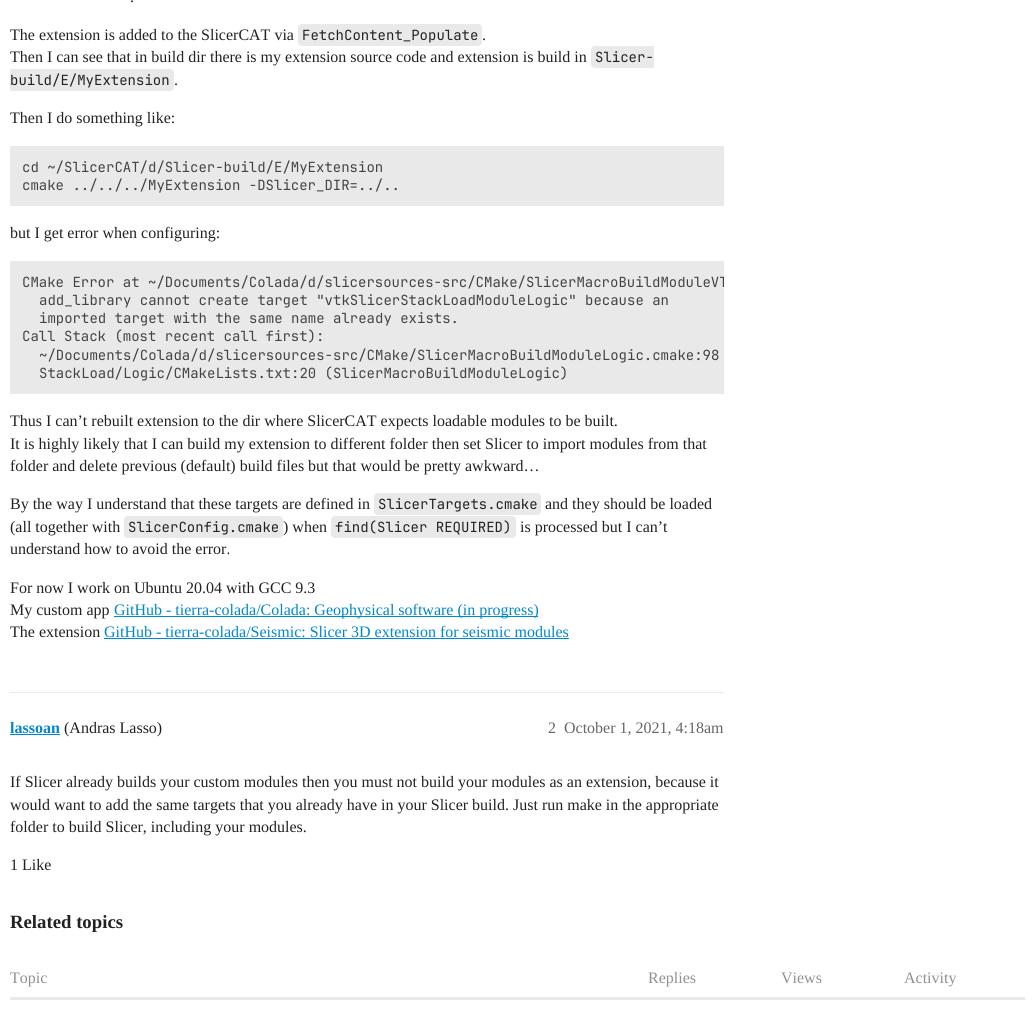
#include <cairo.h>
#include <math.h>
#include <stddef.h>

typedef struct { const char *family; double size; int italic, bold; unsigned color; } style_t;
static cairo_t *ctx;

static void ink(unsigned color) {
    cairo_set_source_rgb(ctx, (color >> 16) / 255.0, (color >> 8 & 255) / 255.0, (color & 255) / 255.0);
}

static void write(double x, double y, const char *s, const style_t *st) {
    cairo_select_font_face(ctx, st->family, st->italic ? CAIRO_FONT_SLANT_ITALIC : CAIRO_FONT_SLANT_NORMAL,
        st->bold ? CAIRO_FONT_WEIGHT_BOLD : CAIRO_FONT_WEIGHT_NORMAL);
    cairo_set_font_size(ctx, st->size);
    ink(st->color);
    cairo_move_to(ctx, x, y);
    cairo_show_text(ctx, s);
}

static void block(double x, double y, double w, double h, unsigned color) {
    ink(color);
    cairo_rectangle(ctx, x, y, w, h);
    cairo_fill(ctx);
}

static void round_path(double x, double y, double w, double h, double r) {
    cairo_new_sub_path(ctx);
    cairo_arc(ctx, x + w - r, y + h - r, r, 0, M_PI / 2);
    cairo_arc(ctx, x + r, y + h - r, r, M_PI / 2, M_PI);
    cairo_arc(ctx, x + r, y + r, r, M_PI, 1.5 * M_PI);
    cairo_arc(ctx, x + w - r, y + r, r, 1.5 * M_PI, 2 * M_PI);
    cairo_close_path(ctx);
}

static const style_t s1 = {"Liberation Serif", 16, 0, 0, 0x222222};
static const style_t s2 = {"JetBrains Mono", 14, 0, 0, 0x222222};
static const style_t s3 = {"JetBrains Mono", 14, 0, 0, 0x434343};
static const style_t s4 = {"Liberation Serif", 16, 0, 0, 0x0088cc};
static const style_t s5 = {"Liberation Serif", 16, 0, 1, 0x0088cc};
static const style_t s6 = {"Liberation Serif", 16, 0, 0, 0x666666};
static const style_t s7 = {"Liberation Serif", 18.75, 0, 1, 0x222222};
static const style_t s8 = {"Liberation Serif", 16, 0, 0, 0x919191};

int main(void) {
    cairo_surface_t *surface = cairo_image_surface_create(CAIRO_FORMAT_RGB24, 1035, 1028);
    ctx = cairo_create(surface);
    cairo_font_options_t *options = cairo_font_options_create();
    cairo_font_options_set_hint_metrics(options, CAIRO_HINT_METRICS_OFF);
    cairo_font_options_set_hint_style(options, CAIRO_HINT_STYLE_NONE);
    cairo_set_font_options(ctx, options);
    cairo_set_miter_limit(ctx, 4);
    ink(0xffffff);
    cairo_paint(ctx);
    write(130, 2, ".", &s1);
    write(10, 40, "The extension is added to the SlicerCAT via", &s1);
    ink(0xe9e9e9);
    round_path(298, 24, 184, 22, 4);
    cairo_fill(ctx);
    write(302, 40, "FetchContent_Populate", &s2);
    write(482, 40, ".", &s1);
    write(10, 62, "Then I can see that in build dir there is my extension source code and extension is build in", &s1);
    ink(0xe9e9e9);
    cairo_new_path(ctx);
    cairo_move_to(ctx, 595, 46);
    cairo_line_to(ctx, 654, 46);
    cairo_line_to(ctx, 654, 68);
    cairo_line_to(ctx, 595, 68);
    cairo_curve_to(ctx, 593, 68, 591, 66, 591, 64);
    cairo_line_to(ctx, 591, 50);
    cairo_curve_to(ctx, 591, 48, 593, 46, 595, 46);
    cairo_close_path(ctx);
    cairo_fill(ctx);
    write(595, 62, "Slicer-", &s2);
    ink(0xe9e9e9);
    cairo_new_path(ctx);
    cairo_move_to(ctx, 10, 69);
    cairo_line_to(ctx, 170, 69);
    cairo_curve_to(ctx, 172, 69, 174, 71, 174, 73);
    cairo_line_to(ctx, 174, 87);
    cairo_curve_to(ctx, 174, 89, 172, 91, 170, 91);
    cairo_line_to(ctx, 10, 91);
    cairo_close_path(ctx);
    cairo_fill(ctx);
    write(10, 85, "build/E/MyExtension", &s2);
    write(174, 85, ".", &s1);
    write(10, 123, "Then I do something like:", &s1);
    block(10, 146, 714, 60, 0xe9e9e9);
    write(22, 172, "cd ~/SlicerCAT/d/Slicer-build/E/MyExtension", &s3);
    write(22, 190, "cmake ../../../MyExtension -DSlicer_DIR=../..", &s3);
    write(10, 238, "but I get error when configuring:", &s1);
    block(10, 261, 714, 133, 0xe9e9e9);
    cairo_save(ctx);
    round_path(10, 261, 714, 133, 4);
    cairo_clip(ctx);
    write(22, 287, "CMake Error at ~/Documents/Colada/d/slicersources-src/CMake/SlicerMacroBuildModuleVT", &s3);
    cairo_restore(ctx);
    write(39, 305, "add_library cannot create target \"vtkSlicerStackLoadModuleLogic\" because an", &s3);
    write(39, 323, "imported target with the same name already exists.", &s3);
    write(22, 341, "Call Stack (most recent call first):", &s3);
    write(39, 360, "~/Documents/Colada/d/slicersources-src/CMake/SlicerMacroBuildModuleLogic.cmake:98", &s3);
    write(39, 378, "StackLoad/Logic/CMakeLists.txt:20 (SlicerMacroBuildModuleLogic)", &s3);
    write(10, 426, "Thus I can’t rebuilt extension to the dir where SlicerCAT expects loadable modules to be built.", &s1);
    write(10, 449, "It is highly likely that I can build my extension to different folder then set Slicer to import modules from that", &s1);
    write(10, 471, "folder and delete previous (default) build files but that would be pretty awkward…", &s1);
    write(10, 509, "By the way I understand that these targets are defined in", &s1);
    ink(0xe9e9e9);
    round_path(374, 493, 167, 22, 4);
    cairo_fill(ctx);
    write(378, 509, "SlicerTargets.cmake", &s2);
    write(545, 509, "and they should be loaded", &s1);
    write(10, 532, "(all together with", &s1);
    ink(0xe9e9e9);
    round_path(124, 516, 159, 22, 4);
    cairo_fill(ctx);
    write(128, 532, "SlicerConfig.cmake", &s2);
    write(283, 532, ") when", &s1);
    ink(0xe9e9e9);
    round_path(331, 516, 185, 22, 4);
    cairo_fill(ctx);
    write(335, 532, "find(Slicer REQUIRED)", &s2);
    write(520, 532, "is processed but I can’t", &s1);
    write(10, 554, "understand how to avoid the error.", &s1);
    write(10, 593, "For now I work on Ubuntu 20.04 with GCC 9.3", &s1);
    write(10, 615, "My custom app", &s1);
    block(114, 616, 424, 1, 0x0088cc);
    write(114, 615, "GitHub - tierra-colada/Colada: Geophysical software (in progress)", &s4);
    write(10, 637, "The extension", &s1);
    write(104, 637, "GitHub - tierra-colada/Seismic: Slicer 3D extension for seismic modules", &s4);
    block(104, 638, 465, 1, 0x0088cc);
    block(10, 692, 714, 1, 0xe9e9e9);
    write(10, 733, "lassoan", &s5);
    block(10, 734, 50, 1, 0x0088cc);
    write(64, 733, "(Andras Lasso)", &s1);
    write(548, 733, "2", &s6);
    write(564, 733, "October 1, 2021, 4:18am", &s6);
    write(10, 787, "If Slicer already builds your custom modules then you must not build your modules as an extension, because it", &s1);
    write(10, 810, "would want to add the same targets that you already have in your Slicer build. Just run make in the appropriate", &s1);
    write(10, 832, "folder to build Slicer, including your modules.", &s1);
    write(10, 870, "1 Like", &s1);
    write(10, 928, "Related topics", &s7);
    write(10, 983, "Topic", &s8);
    write(648, 983, "Replies", &s8);
    write(781, 983, "Views", &s8);
    write(904, 983, "Activity", &s8);
    block(10, 997, 1015, 3, 0xe9e9e9);
    cairo_surface_write_to_png(surface, "screenshot.png");
    cairo_font_options_destroy(options);
    cairo_destroy(ctx);
    cairo_surface_destroy(surface);
    return 0;
}
